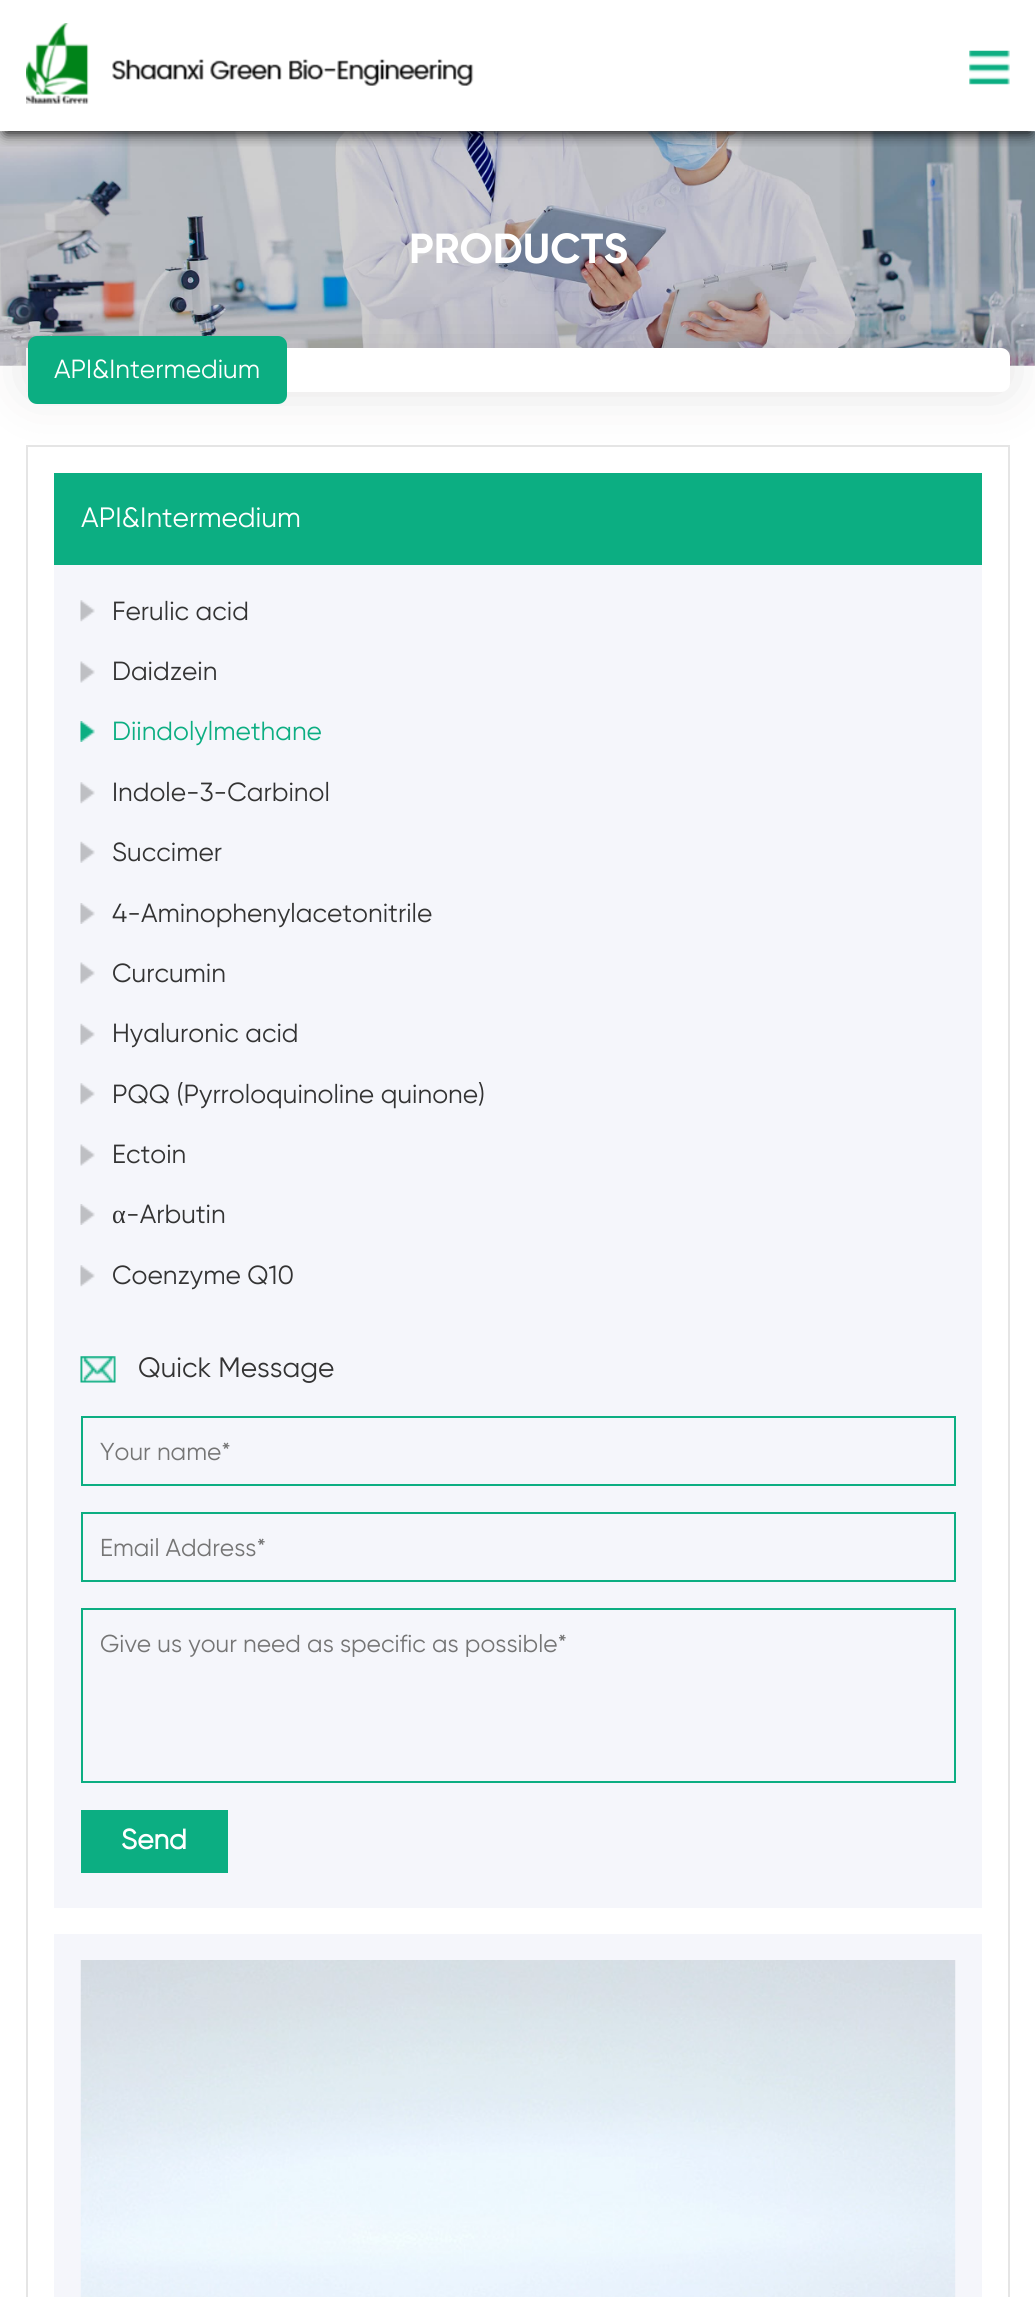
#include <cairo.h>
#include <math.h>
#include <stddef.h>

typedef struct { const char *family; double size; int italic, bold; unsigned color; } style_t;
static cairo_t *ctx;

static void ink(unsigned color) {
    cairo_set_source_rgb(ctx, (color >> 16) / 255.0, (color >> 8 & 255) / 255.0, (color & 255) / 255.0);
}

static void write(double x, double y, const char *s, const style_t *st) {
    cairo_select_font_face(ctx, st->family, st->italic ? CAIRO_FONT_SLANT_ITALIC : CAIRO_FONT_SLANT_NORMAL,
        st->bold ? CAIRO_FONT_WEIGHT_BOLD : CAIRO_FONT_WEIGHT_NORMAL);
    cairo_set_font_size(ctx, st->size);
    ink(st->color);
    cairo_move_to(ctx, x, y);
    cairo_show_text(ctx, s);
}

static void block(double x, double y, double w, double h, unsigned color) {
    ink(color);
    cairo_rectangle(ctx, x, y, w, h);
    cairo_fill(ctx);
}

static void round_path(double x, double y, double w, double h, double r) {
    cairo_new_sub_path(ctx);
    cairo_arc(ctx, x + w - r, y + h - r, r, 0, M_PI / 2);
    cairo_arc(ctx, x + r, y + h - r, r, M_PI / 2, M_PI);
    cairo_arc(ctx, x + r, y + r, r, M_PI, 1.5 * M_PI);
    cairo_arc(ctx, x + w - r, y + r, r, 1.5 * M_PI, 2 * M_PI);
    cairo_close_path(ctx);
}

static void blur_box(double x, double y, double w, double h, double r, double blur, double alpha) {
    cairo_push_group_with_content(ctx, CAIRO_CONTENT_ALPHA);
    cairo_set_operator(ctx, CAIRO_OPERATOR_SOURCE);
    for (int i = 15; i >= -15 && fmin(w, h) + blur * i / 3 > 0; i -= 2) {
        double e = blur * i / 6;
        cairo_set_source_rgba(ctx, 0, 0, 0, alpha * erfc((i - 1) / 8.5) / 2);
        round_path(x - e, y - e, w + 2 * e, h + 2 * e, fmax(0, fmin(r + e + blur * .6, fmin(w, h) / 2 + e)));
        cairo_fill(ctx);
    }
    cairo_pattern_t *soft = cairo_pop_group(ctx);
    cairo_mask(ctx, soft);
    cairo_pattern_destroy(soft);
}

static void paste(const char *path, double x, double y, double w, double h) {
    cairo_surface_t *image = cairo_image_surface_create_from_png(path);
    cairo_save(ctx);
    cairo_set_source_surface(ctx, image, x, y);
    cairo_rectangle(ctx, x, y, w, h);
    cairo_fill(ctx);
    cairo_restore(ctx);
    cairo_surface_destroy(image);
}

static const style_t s1 = {"Gilroy", 42, 0, 1, 0xffffff};
static const style_t s2 = {"Gilroy", 26.25, 0, 0, 0xffffff};
static const style_t s3 = {"Gilroy", 28, 0, 0, 0xffffff};
static const style_t s4 = {"Gilroy", 26.25, 0, 0, 0x333333};
static const style_t s5 = {"Gilroy", 26.25, 0, 0, 0x0cae82};
static const style_t s6 = {"Liberation Serif", 26.25, 0, 0, 0x333333};
static const style_t s7 = {"Gilroy", 28, 0, 0, 0x333333};
static const style_t s8 = {"Gilroy", 24.5, 0, 0, 0x757575};
static const style_t s9 = {"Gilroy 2", 28, 0, 1, 0xffffff};

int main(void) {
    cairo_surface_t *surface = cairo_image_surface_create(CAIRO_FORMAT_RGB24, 1035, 2297);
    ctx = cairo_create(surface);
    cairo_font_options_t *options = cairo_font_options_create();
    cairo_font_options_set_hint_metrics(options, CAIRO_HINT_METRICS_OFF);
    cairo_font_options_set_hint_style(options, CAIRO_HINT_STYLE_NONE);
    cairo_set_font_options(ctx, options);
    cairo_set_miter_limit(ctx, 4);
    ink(0xffffff);
    cairo_paint(ctx);
    paste("pic3.png", 0, 131, 1035, 235);
    cairo_save(ctx);
    cairo_rectangle(ctx, 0, 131, 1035, 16);
    cairo_clip(ctx);
    ink(0x000000);
    blur_box(5, 12, 1026, 121, 0, 7, 1);
    cairo_restore(ctx);
    paste("pic1.png", 26, 23, 448, 81);
    paste("pic2.png", 969, 50, 41, 35);
    write(409, 263, "PRODUCTS", &s1);
    cairo_rectangle(ctx, 27, 446, 982, 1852);
    ink(0xe5e5e5);
    cairo_stroke(ctx);
    block(54, 473, 928, 92, 0x0cae82);
    ink(0x221815);
    blur_box(26, 348, 984, 44, 9, 28, 0.12);
    ink(0xffffff);
    round_path(26, 348, 984, 44, 9);
    cairo_fill(ctx);
    block(26, 348, 2, 44, 0xf2f2f2);
    ink(0x0cae82);
    round_path(28, 336, 259, 68, 9);
    cairo_fill(ctx);
    write(54, 378, "API&Intermedium", &s2);
    block(54, 565, 928, 1343, 0xf5f6fb);
    write(81, 527, "API&Intermedium", &s3);
    paste("pic4.png", 80, 600, 15, 22);
    write(112, 620, "Ferulic acid", &s4);
    paste("pic5.png", 80, 661, 15, 22);
    write(112, 680, "Daidzein", &s4);
    paste("pic6.png", 80, 721, 15, 21);
    write(112, 740, "Diindolylmethane", &s5);
    paste("pic4.png", 80, 782, 15, 22);
    write(112, 801, "Indole-3-Carbinol", &s4);
    paste("pic7.png", 80, 841, 15, 22);
    write(112, 861, "Succimer", &s4);
    paste("pic8.png", 80, 903, 15, 21);
    write(112, 922, "4-Aminophenylacetonitrile", &s4);
    paste("pic5.png", 80, 962, 15, 22);
    write(112, 982, "Curcumin", &s4);
    paste("pic7.png", 80, 1023, 15, 22);
    write(112, 1042, "Hyaluronic acid", &s4);
    paste("pic4.png", 80, 1083, 15, 22);
    write(112, 1103, "PQQ (Pyrroloquinoline quinone)", &s4);
    paste("pic5.png", 80, 1144, 15, 22);
    write(112, 1163, "Ectoin", &s4);
    paste("pic8.png", 80, 1204, 15, 21);
    write(112, 1223, "α", &s6);
    write(126, 1223, "-Arbutin", &s4);
    paste("pic4.png", 80, 1265, 15, 22);
    write(112, 1284, "Coenzyme Q10", &s4);
    paste("pic9.png", 80, 1356, 36, 27);
    write(138, 1377, "Quick Message", &s7);
    cairo_rectangle(ctx, 82, 1417, 873, 68);
    ink(0x0cae82);
    cairo_stroke(ctx);
    write(100, 1460, "Your name*", &s8);
    cairo_rectangle(ctx, 82, 1513, 873, 68);
    ink(0x0cae82);
    cairo_stroke(ctx);
    write(100, 1556, "Email Address*", &s8);
    cairo_rectangle(ctx, 82, 1609, 873, 173);
    ink(0x0cae82);
    cairo_stroke(ctx);
    write(100, 1652, "Give us your need as specific as possible*", &s8);
    block(81, 1810, 147, 63, 0x0cae82);
    write(121, 1849, "Send", &s9);
    block(54, 1934, 928, 363, 0xf5f6fb);
    paste("pic10.png", 80, 1960, 876, 337);
    cairo_surface_write_to_png(surface, "screenshot.png");
    cairo_font_options_destroy(options);
    cairo_destroy(ctx);
    cairo_surface_destroy(surface);
    return 0;
}
